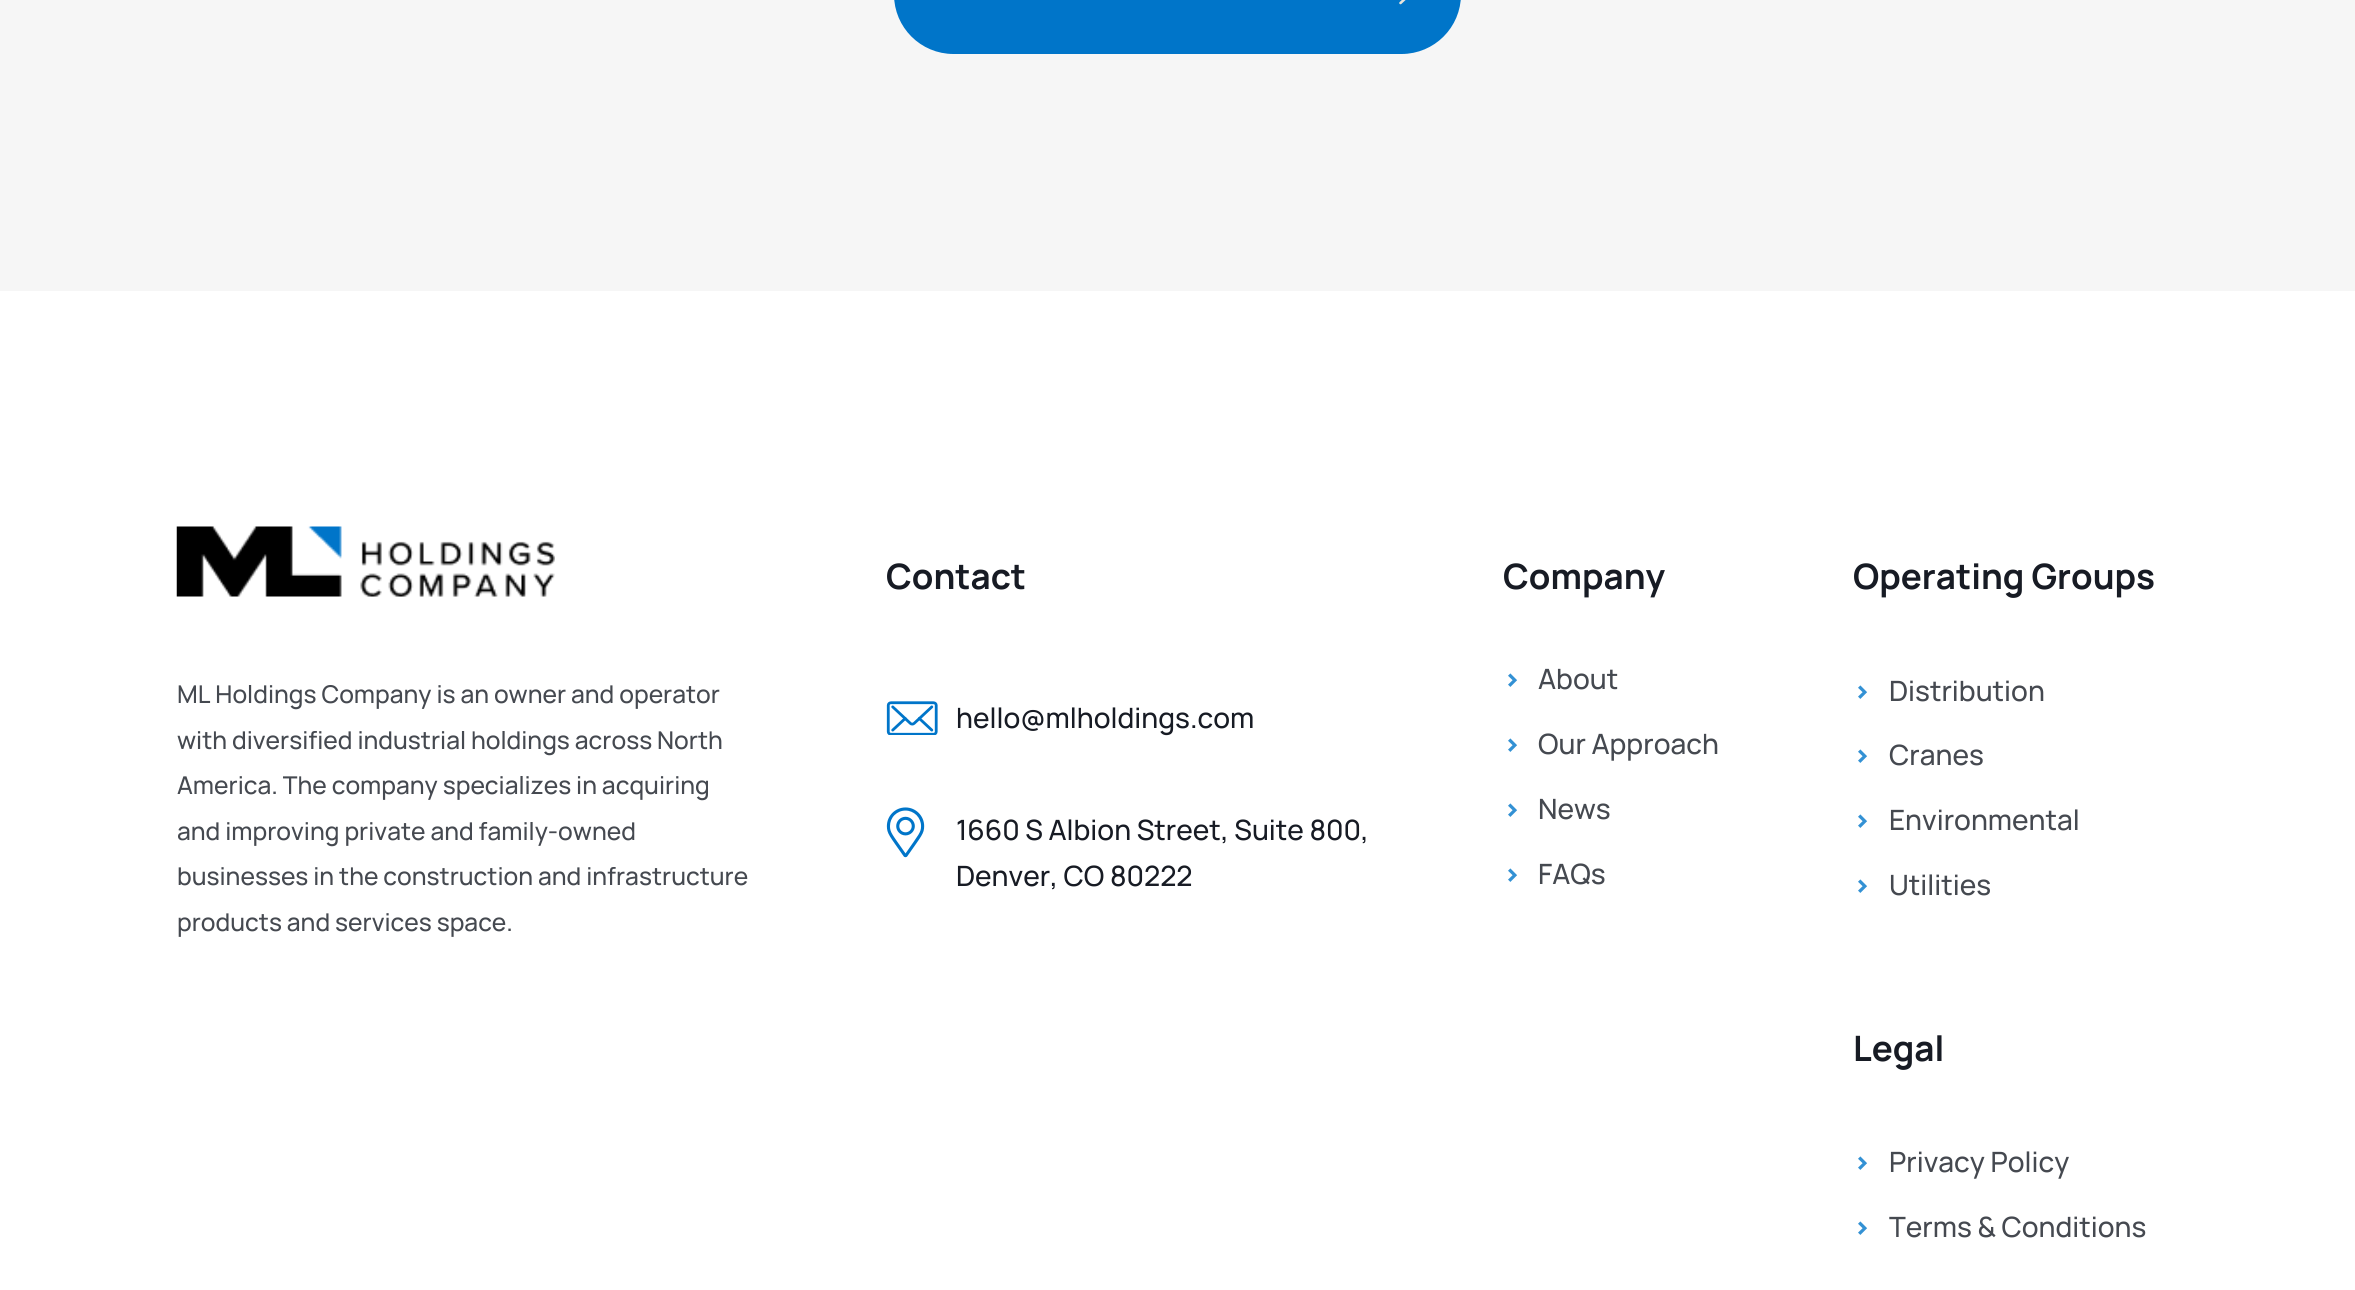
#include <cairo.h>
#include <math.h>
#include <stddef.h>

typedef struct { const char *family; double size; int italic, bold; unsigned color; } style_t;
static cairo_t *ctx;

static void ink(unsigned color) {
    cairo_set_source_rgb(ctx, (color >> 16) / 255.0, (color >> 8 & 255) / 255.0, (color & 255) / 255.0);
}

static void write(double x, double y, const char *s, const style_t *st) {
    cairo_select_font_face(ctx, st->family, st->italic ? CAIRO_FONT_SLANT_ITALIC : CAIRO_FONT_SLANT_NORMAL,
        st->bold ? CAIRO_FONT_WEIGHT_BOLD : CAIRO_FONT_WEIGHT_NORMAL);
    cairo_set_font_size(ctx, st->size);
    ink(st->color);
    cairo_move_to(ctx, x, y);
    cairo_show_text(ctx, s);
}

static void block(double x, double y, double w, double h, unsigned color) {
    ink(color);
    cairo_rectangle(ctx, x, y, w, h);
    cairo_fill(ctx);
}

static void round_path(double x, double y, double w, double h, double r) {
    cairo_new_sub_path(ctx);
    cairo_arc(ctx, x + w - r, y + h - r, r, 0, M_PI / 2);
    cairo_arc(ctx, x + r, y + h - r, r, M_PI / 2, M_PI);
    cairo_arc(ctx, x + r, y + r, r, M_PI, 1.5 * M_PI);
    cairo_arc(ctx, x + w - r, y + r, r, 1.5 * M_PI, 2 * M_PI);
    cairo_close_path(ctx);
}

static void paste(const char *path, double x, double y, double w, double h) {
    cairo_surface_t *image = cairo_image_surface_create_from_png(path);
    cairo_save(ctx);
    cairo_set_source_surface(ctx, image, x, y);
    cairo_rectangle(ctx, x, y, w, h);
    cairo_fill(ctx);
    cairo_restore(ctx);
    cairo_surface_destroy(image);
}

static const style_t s1 = {"Manrope Medium", 24.5, 0, 0, 0x454950};
static const style_t s2 = {"Manrope", 35, 0, 1, 0x171b24};
static const style_t s3 = {"Manrope Medium", 28, 0, 0, 0x171b24};
static const style_t s4 = {"Manrope ExtraLight", 28, 0, 0, 0x3391d4};
static const style_t s5 = {"Manrope Medium", 28, 0, 0, 0x454950};

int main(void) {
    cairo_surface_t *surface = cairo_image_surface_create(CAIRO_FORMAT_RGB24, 2355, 1290);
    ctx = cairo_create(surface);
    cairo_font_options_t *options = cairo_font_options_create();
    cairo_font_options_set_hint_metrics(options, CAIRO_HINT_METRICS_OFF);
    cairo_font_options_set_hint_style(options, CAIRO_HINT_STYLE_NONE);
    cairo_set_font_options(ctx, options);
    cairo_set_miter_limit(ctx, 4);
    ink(0xffffff);
    cairo_paint(ctx);
    block(0, 0, 2355, 291, 0xf6f6f6);
    ink(0x0075c9);
    round_path(896.5, -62.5, 562, 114, 57);
    cairo_fill_preserve(ctx);
    cairo_set_line_width(ctx, 5);
    cairo_stroke(ctx);
    cairo_new_path(ctx);
    cairo_move_to(ctx, 1400.5, -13.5);
    cairo_line_to(ctx, 1409, -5);
    cairo_line_to(ctx, 1400.5, 3);
    ink(0xe8e4db);
    cairo_set_line_width(ctx, 2.6);
    cairo_set_line_cap(ctx, CAIRO_LINE_CAP_ROUND);
    cairo_set_line_join(ctx, CAIRO_LINE_JOIN_ROUND);
    cairo_stroke(ctx);
    paste("pic1.png", 176, 526, 379, 71);
    write(177, 703, "ML Holdings Company is an owner and operator", &s1);
    write(177, 749, "with diversified industrial holdings across North", &s1);
    write(177, 794, "America. The company specializes in acquiring", &s1);
    write(177, 840, "and improving private and family-owned", &s1);
    write(177, 885, "businesses in the construction and infrastructure", &s1);
    write(177, 931, "products and services space.", &s1);
    write(886, 589, "Contact", &s2);
    paste("pic2.png", 886, 701, 52, 34);
    write(956, 728, "hello@mlholdings.com", &s3);
    paste("pic3.png", 886, 807, 39, 51);
    write(956, 840, "1660 S Albion Street, Suite 800,", &s3);
    write(956, 886, "Denver, CO 80222", &s3);
    write(1503, 589, "Company", &s2);
    write(1503, 689, "›", &s4);
    write(1538, 689, "About", &s5);
    write(1503, 754, "›", &s4);
    write(1538, 754, "Our Approach", &s5);
    write(1503, 819, "›", &s4);
    write(1538, 819, "News", &s5);
    write(1503, 884, "›", &s4);
    write(1538, 884, "FAQs", &s5);
    write(1853, 589, "Operating Groups", &s2);
    write(1853, 701, "›", &s4);
    write(1889, 701, "Distribution", &s5);
    write(1853, 765, "›", &s4);
    write(1889, 765, "Cranes", &s5);
    write(1853, 830, "›", &s4);
    write(1889, 830, "Environmental", &s5);
    write(1853, 895, "›", &s4);
    write(1889, 895, "Utilities", &s5);
    write(1853, 1061, "Legal", &s2);
    write(1853, 1172, "›", &s4);
    write(1889, 1172, "Privacy Policy", &s5);
    write(1853, 1237, "›", &s4);
    write(1889, 1237, "Terms & Conditions", &s5);
    cairo_surface_write_to_png(surface, "screenshot.png");
    cairo_font_options_destroy(options);
    cairo_destroy(ctx);
    cairo_surface_destroy(surface);
    return 0;
}
